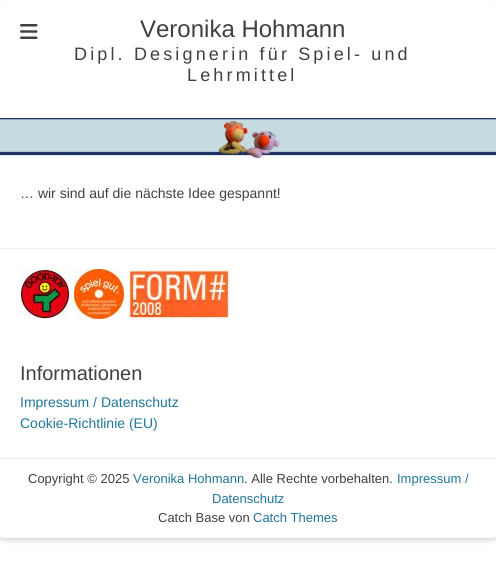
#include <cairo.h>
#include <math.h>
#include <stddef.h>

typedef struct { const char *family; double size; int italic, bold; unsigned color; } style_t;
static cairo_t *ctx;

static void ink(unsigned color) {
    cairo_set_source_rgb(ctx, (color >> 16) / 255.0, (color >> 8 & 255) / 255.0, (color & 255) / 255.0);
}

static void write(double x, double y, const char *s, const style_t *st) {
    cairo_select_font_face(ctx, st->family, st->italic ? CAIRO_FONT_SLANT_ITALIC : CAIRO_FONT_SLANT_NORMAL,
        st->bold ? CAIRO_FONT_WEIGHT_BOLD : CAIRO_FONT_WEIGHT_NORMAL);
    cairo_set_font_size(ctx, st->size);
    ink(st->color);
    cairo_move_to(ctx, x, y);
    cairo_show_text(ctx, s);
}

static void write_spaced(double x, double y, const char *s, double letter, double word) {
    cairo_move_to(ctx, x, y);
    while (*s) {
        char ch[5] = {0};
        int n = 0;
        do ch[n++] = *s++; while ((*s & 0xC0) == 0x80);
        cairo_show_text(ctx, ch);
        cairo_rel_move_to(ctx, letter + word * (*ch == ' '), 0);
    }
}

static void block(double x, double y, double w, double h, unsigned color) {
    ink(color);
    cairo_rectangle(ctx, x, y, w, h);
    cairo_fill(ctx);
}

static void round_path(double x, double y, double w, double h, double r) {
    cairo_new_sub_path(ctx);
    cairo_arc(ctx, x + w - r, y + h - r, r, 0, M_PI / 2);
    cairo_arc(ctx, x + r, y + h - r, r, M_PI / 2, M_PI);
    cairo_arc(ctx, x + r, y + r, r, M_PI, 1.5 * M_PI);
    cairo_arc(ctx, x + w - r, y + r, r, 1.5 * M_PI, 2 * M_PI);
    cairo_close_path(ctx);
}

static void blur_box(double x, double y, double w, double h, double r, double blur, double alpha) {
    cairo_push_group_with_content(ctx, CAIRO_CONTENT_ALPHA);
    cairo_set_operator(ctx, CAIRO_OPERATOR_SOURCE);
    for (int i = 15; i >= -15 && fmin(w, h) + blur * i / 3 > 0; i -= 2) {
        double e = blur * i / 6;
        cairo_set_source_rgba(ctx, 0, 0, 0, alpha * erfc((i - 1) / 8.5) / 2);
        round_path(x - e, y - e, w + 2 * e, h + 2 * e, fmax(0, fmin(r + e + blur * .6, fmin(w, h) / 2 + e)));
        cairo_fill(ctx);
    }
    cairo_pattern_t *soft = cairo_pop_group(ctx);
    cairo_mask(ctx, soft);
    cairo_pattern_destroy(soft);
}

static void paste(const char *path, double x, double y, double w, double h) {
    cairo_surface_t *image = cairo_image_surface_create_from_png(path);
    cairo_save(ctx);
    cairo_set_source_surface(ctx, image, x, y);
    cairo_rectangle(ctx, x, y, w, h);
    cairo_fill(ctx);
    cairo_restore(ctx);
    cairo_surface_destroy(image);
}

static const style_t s1 = {"Liberation Sans", 24, 0, 0, 0x404040};
static const style_t s2 = {"Liberation Sans", 14, 0, 0, 0x404040};
static const style_t s3 = {"Liberation Sans", 20, 0, 0, 0x404040};
static const style_t s4 = {"Liberation Sans", 14, 0, 0, 0x21759b};
static const style_t s5 = {"Liberation Sans", 13, 0, 0, 0x404040};
static const style_t s6 = {"Liberation Sans", 13, 0, 0, 0x21759b};

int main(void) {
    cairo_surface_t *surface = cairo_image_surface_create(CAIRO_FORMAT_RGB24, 496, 562);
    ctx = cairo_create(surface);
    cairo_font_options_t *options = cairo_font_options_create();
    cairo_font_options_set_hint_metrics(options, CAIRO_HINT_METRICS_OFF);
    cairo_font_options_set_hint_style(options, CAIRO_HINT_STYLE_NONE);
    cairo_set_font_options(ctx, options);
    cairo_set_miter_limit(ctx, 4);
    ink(0xffffff);
    cairo_paint(ctx);
    ink(0x646464);
    blur_box(0, 2, 496, 538, 3, 3, 0.3);
    ink(0xffffff);
    round_path(0, 0, 496, 538, 3);
    cairo_fill(ctx);
    paste("pic1.png", 20, 24, 18, 15);
    write(140, 37, "Veronika Hohmann", &s1);
    cairo_set_font_size(ctx, 18);
    write_spaced(74, 60, "Dipl. Designerin für Spiel- und", 3.15, 0);
    write_spaced(187, 81, "Lehrmittel", 3.15, 0);
    paste("pic2.png", 0, 118, 496, 40);
    write(20, 198, "… wir sind auf die nächste Idee gespannt!", &s2);
    block(0, 248, 496, 1, 0xeeeeee);
    paste("pic3.png", 20, 269, 50, 50);
    paste("pic4.png", 74, 269, 50, 50);
    paste("pic5.png", 128, 269, 102, 50);
    write(20, 380, "Informationen", &s3);
    write(20, 407, "Impressum / Datenschutz", &s4);
    write(20, 428, "Cookie-Richtlinie (EU)", &s4);
    block(0, 458, 496, 1, 0xeeeeee);
    write(28, 483, "Copyright © 2025", &s5);
    write(133, 483, "Veronika Hohmann", &s6);
    write(244, 483, ". Alle Rechte vorbehalten.", &s5);
    write(397, 483, "Impressum /", &s6);
    write(212, 503, "Datenschutz", &s6);
    write(158, 522, "Catch Base von", &s5);
    write(253, 522, "Catch Themes", &s6);
    cairo_surface_write_to_png(surface, "screenshot.png");
    cairo_font_options_destroy(options);
    cairo_destroy(ctx);
    cairo_surface_destroy(surface);
    return 0;
}
